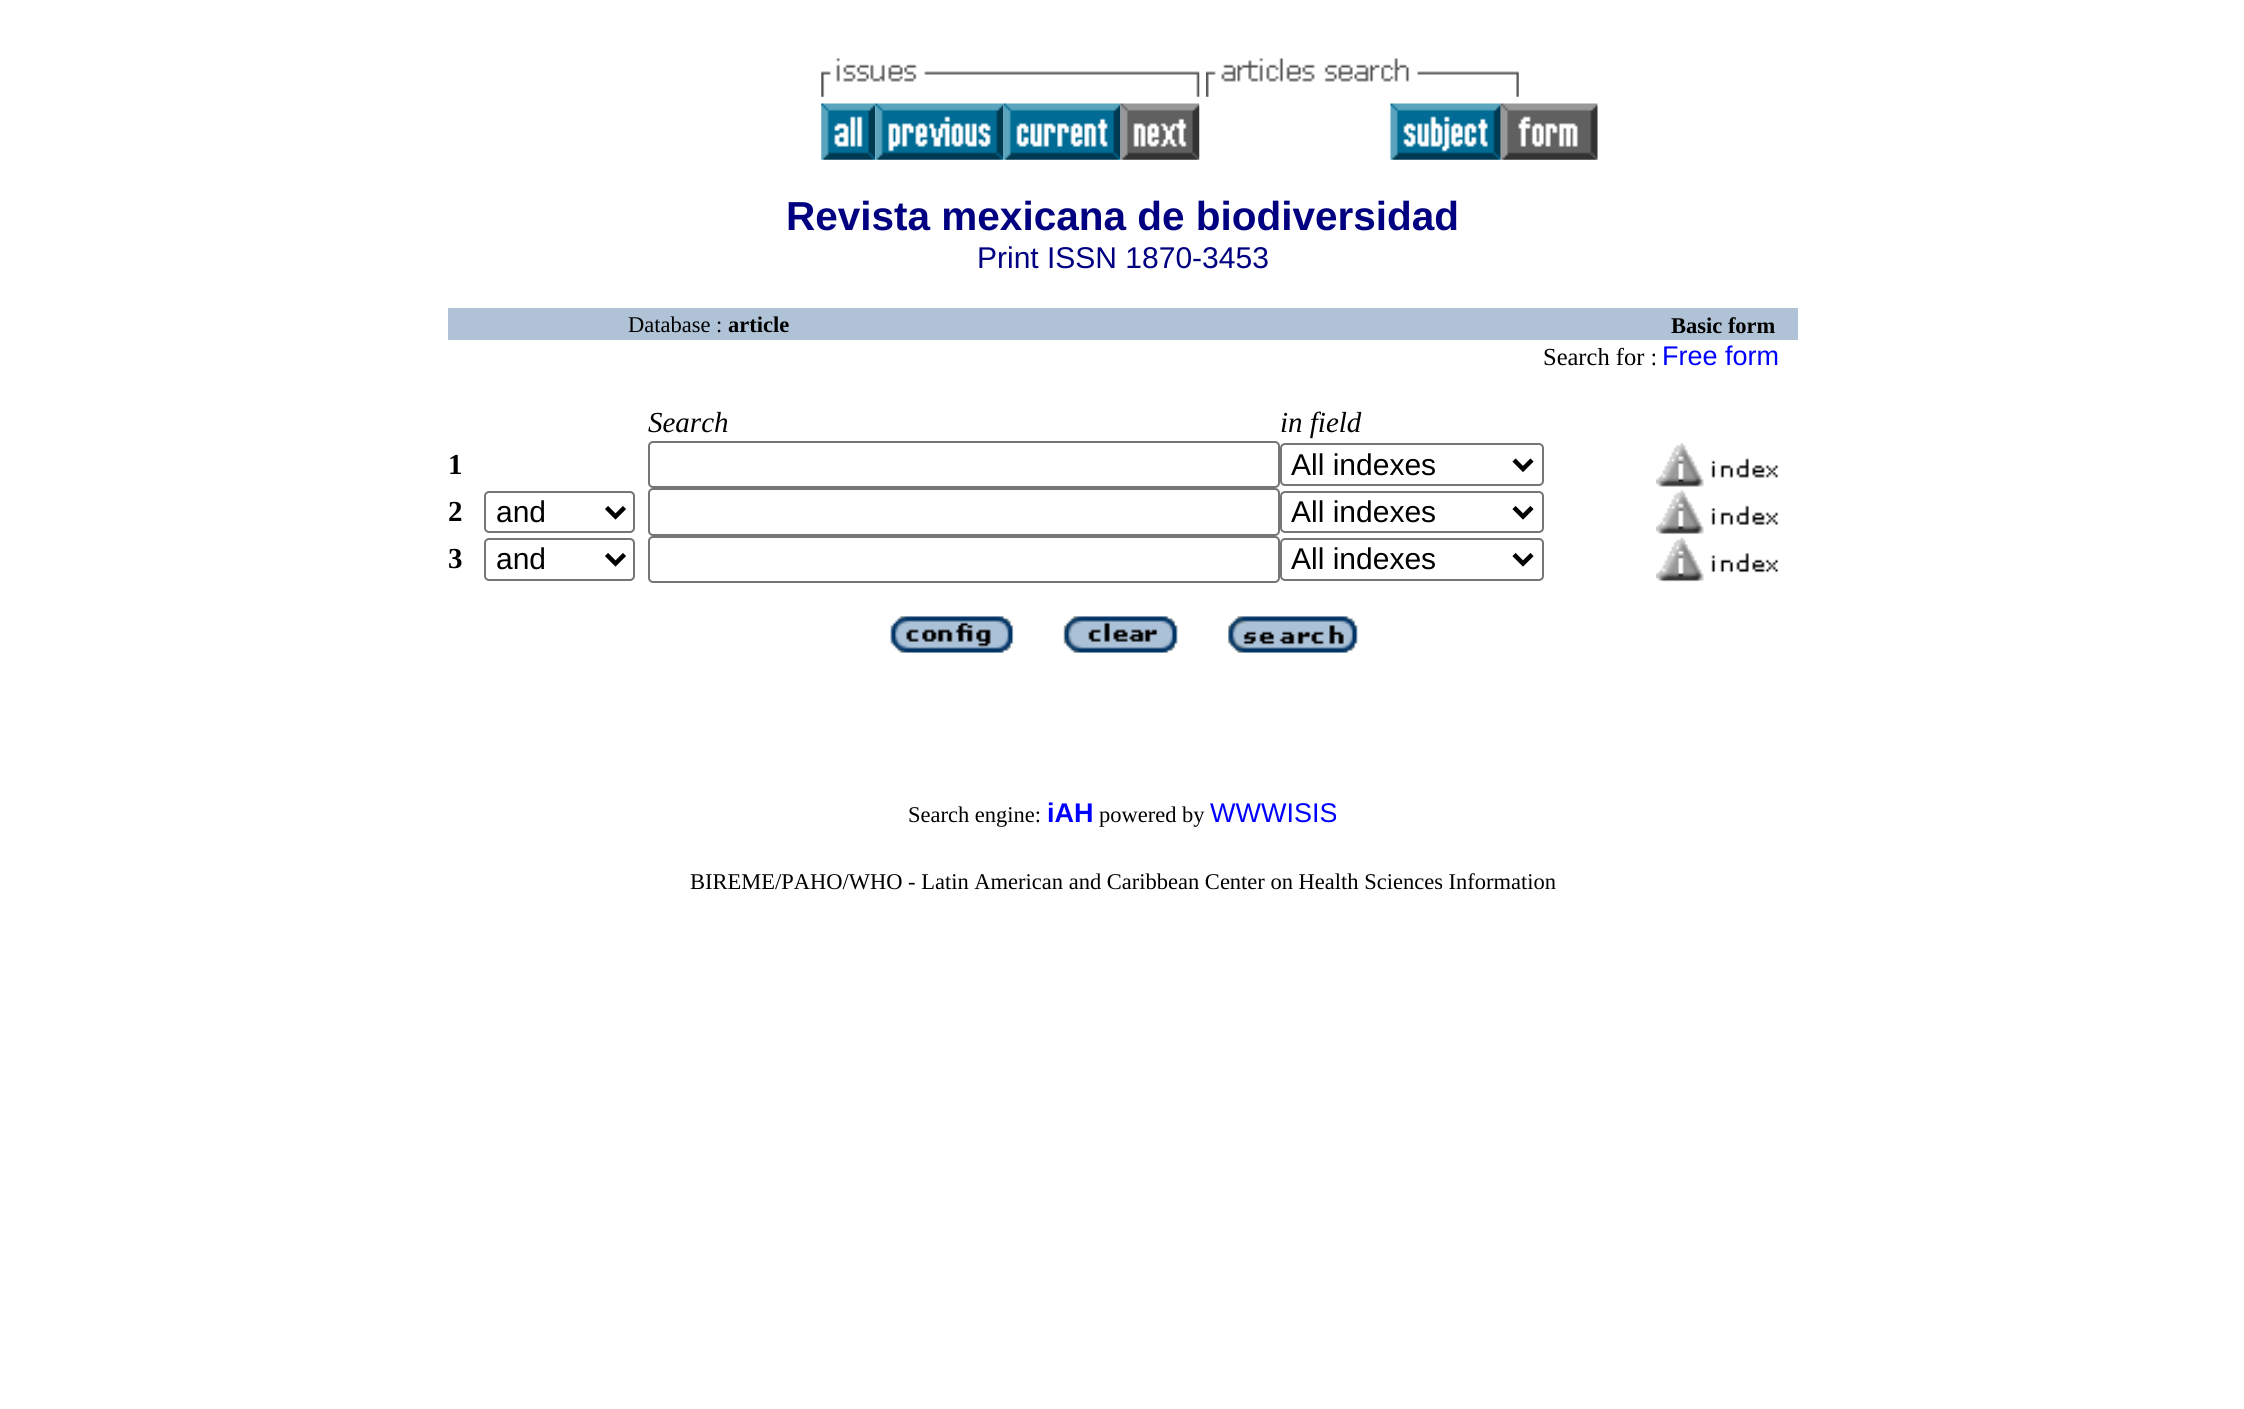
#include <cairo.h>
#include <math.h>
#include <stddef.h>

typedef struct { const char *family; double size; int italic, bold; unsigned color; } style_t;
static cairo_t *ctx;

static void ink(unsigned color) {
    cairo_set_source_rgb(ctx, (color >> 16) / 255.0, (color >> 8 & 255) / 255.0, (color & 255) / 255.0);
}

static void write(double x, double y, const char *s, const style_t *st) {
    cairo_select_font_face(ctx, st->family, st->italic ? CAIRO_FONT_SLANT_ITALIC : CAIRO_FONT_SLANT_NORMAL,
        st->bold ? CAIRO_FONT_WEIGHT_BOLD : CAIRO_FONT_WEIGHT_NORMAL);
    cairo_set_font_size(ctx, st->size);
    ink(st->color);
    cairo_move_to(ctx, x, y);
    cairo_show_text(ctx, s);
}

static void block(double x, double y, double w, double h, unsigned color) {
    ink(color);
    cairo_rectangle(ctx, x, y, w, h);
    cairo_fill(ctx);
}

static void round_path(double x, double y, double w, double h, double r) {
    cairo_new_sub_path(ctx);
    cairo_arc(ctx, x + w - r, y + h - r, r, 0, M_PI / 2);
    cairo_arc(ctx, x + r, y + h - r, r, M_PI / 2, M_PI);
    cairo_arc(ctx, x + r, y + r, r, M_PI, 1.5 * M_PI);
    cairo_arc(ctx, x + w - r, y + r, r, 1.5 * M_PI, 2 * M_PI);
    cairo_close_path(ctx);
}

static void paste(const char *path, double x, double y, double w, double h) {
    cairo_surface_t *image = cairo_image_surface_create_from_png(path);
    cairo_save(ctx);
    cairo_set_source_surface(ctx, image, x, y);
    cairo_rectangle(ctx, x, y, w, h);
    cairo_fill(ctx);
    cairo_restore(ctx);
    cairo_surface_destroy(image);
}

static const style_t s1 = {"Liberation Sans", 40.5, 0, 1, 0x000080};
static const style_t s2 = {"Liberation Sans", 30, 0, 0, 0x000080};
static const style_t s3 = {"Liberation Serif", 22.5, 0, 0, 0x000000};
static const style_t s4 = {"Liberation Serif", 22.5, 0, 1, 0x000000};
static const style_t s5 = {"Liberation Serif", 24.5, 0, 0, 0x000000};
static const style_t s6 = {"Liberation Sans", 27, 0, 0, 0x0000ff};
static const style_t s7 = {"Liberation Serif", 29, 1, 0, 0x000000};
static const style_t s8 = {"Liberation Serif", 29, 0, 1, 0x000000};
static const style_t s9 = {"Liberation Sans", 30, 0, 0, 0x000000};
static const style_t s10 = {"Liberation Sans", 27, 0, 1, 0x0000ff};

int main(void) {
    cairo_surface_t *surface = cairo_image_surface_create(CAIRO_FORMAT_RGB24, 2244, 1409);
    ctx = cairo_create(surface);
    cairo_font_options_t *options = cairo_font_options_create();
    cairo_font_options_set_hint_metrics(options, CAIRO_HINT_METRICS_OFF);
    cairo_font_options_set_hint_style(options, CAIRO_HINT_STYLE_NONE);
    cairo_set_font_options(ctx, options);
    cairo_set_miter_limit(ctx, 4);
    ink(0xffffff);
    cairo_paint(ctx);
    paste("pic1.png", 821, 58, 379, 39);
    paste("pic2.png", 1206, 58, 313, 39);
    paste("pic3.png", 821, 103, 55, 57);
    paste("pic4.png", 875, 103, 129, 57);
    paste("pic5.png", 1003, 103, 118, 57);
    paste("pic6.png", 1120, 103, 80, 57);
    paste("pic7.png", 1390, 103, 111, 57);
    paste("pic8.png", 1500, 103, 98, 57);
    write(786, 230, "Revista mexicana de biodiversidad", &s1);
    write(977, 268, "Print ISSN 1870-3453", &s2);
    block(448, 308, 1350, 32, 0xb0c2d5);
    write(628, 332, "Database :", &s3);
    write(728, 332, "article", &s4);
    write(1671, 333, "Basic form", &s4);
    write(1543, 365, "Search for :", &s5);
    write(1662, 365, "Free form", &s6);
    write(648, 432, "Search", &s7);
    write(1280, 432, "in field", &s7);
    write(448, 474, "1", &s8);
    round_path(649, 442, 630, 45, 4);
    ink(0x767676);
    cairo_stroke(ctx);
    round_path(1281, 444, 262, 41, 4);
    cairo_stroke(ctx);
    cairo_new_path(ctx);
    cairo_move_to(ctx, 1514, 460);
    cairo_line_to(ctx, 1523, 469);
    cairo_line_to(ctx, 1532, 460);
    ink(0x000000);
    cairo_set_line_width(ctx, 4.5);
    cairo_stroke(ctx);
    write(1291, 475, "All indexes", &s9);
    paste("pic9.png", 1656, 443, 123, 44);
    write(448, 521, "2", &s8);
    round_path(485, 492, 149, 40, 4);
    ink(0x767676);
    cairo_set_line_width(ctx, 2);
    cairo_stroke(ctx);
    cairo_new_path(ctx);
    cairo_move_to(ctx, 606.5, 507.5);
    cairo_line_to(ctx, 615.5, 516.5);
    cairo_line_to(ctx, 624.5, 507.5);
    ink(0x000000);
    cairo_set_line_width(ctx, 4.5);
    cairo_stroke(ctx);
    write(496, 522, "and", &s9);
    round_path(649, 489, 630, 46, 4);
    ink(0x767676);
    cairo_set_line_width(ctx, 2);
    cairo_stroke(ctx);
    round_path(1281, 492, 262, 40, 4);
    cairo_stroke(ctx);
    cairo_new_path(ctx);
    cairo_move_to(ctx, 1514, 507.5);
    cairo_line_to(ctx, 1523, 516.5);
    cairo_line_to(ctx, 1532, 507.5);
    ink(0x000000);
    cairo_set_line_width(ctx, 4.5);
    cairo_stroke(ctx);
    write(1291, 522, "All indexes", &s9);
    paste("pic10.png", 1656, 490, 123, 44);
    write(448, 568, "3", &s8);
    round_path(485, 539, 149, 41, 4);
    ink(0x767676);
    cairo_set_line_width(ctx, 2);
    cairo_stroke(ctx);
    cairo_new_path(ctx);
    cairo_move_to(ctx, 606.5, 554.5);
    cairo_line_to(ctx, 615.5, 563.5);
    cairo_line_to(ctx, 624.5, 554.5);
    ink(0x000000);
    cairo_set_line_width(ctx, 4.5);
    cairo_stroke(ctx);
    write(496, 569, "and", &s9);
    round_path(649, 537, 630, 45, 4);
    ink(0x767676);
    cairo_set_line_width(ctx, 2);
    cairo_stroke(ctx);
    round_path(1281, 539, 262, 41, 4);
    cairo_stroke(ctx);
    cairo_new_path(ctx);
    cairo_move_to(ctx, 1514, 554.5);
    cairo_line_to(ctx, 1523, 563.5);
    cairo_line_to(ctx, 1532, 554.5);
    ink(0x000000);
    cairo_set_line_width(ctx, 4.5);
    cairo_stroke(ctx);
    write(1291, 569, "All indexes", &s9);
    paste("pic11.png", 1656, 537, 123, 45);
    paste("pic12.png", 890, 616, 124, 37);
    paste("pic13.png", 1063, 616, 115, 37);
    paste("pic14.png", 1228, 616, 130, 37);
    write(908, 822, "Search engine:", &s3);
    write(1047, 822, "iAH", &s10);
    write(1099, 822, "powered by", &s3);
    write(1210, 822, "WWWISIS", &s6);
    write(690, 889, "BIREME/PAHO/WHO - Latin American and Caribbean Center on Health Sciences Information", &s3);
    cairo_surface_write_to_png(surface, "screenshot.png");
    cairo_font_options_destroy(options);
    cairo_destroy(ctx);
    cairo_surface_destroy(surface);
    return 0;
}
